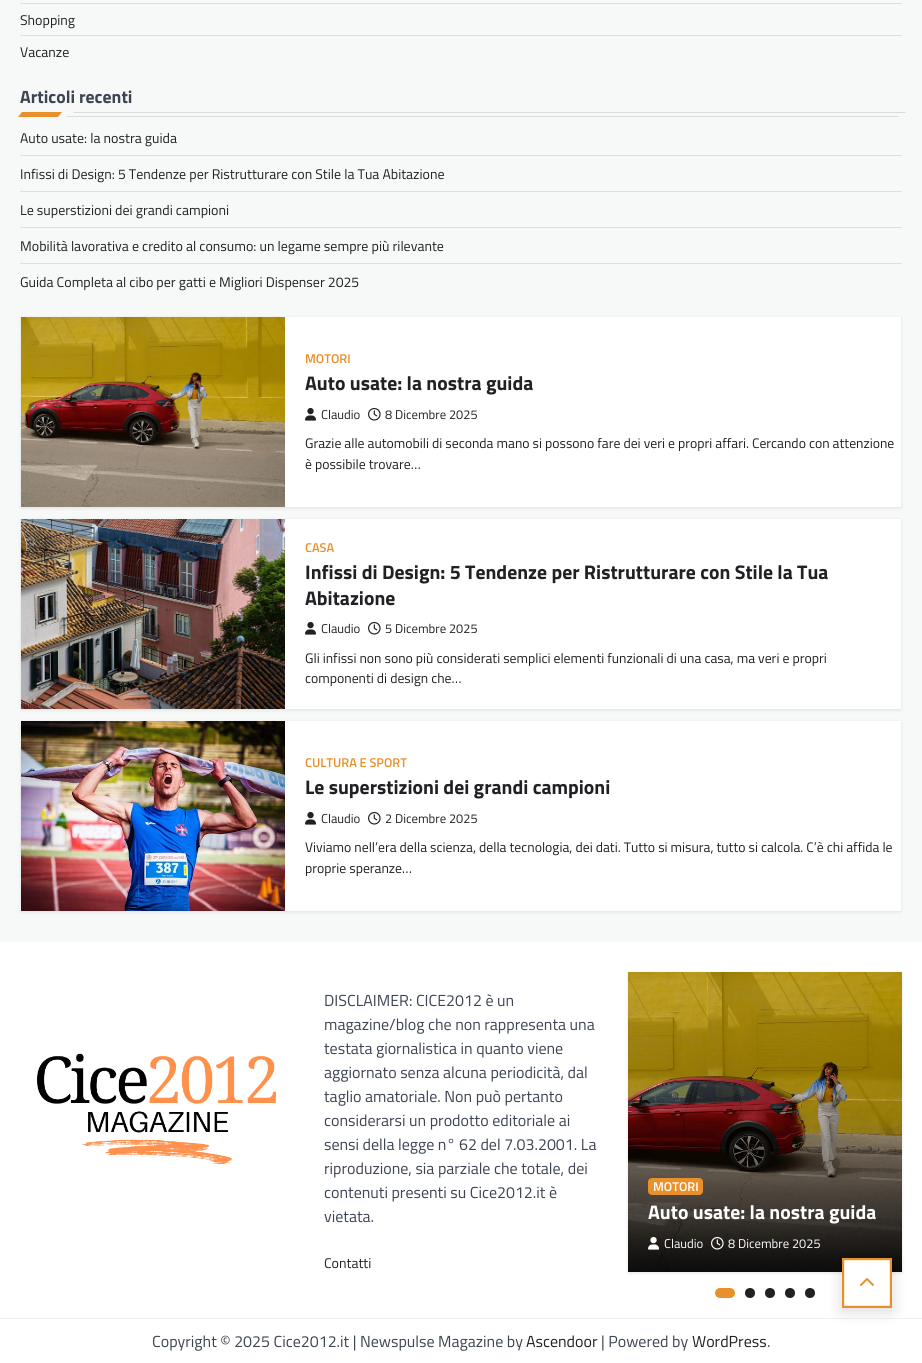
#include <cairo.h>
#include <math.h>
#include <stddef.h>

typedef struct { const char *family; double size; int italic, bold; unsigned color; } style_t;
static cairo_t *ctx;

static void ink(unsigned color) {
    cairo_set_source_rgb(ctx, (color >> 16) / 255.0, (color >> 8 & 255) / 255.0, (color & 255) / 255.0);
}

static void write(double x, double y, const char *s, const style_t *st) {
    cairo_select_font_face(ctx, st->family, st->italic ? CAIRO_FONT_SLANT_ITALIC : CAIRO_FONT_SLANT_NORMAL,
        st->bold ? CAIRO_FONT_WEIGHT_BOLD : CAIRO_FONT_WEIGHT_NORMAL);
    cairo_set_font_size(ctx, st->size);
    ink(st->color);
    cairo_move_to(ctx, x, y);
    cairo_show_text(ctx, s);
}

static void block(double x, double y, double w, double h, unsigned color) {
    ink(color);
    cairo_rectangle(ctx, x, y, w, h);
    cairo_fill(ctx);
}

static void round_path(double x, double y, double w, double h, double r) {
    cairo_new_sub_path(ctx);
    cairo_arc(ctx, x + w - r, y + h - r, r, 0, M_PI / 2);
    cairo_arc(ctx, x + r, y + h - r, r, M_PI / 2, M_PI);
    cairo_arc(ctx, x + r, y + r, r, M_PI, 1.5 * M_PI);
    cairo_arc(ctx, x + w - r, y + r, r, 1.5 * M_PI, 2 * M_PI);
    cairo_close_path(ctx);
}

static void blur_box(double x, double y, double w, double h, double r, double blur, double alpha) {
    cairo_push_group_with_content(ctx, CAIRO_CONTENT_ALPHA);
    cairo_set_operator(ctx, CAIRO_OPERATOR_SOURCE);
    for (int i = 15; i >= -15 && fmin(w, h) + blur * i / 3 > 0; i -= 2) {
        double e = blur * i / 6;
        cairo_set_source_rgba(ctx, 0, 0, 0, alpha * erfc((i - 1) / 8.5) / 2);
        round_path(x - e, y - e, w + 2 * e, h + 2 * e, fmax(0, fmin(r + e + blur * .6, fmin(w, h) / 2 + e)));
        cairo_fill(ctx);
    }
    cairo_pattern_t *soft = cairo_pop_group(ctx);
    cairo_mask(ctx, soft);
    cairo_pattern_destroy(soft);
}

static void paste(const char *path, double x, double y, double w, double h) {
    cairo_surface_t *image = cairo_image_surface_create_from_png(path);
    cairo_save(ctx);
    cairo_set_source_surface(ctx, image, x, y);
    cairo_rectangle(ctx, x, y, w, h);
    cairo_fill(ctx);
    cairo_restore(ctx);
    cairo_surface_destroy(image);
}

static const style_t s1 = {"Titillium Web", 14, 0, 0, 0x202124};
static const style_t s2 = {"Titillium Web", 17.75, 0, 1, 0x3d4452};
static const style_t s3 = {"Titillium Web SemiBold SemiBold", 12.75, 0, 0, 0xea902a};
static const style_t s4 = {"Titillium Web", 19.7, 0, 1, 0x202124};
static const style_t s5 = {"Titillium Web", 12.75, 0, 0, 0x202124};
static const style_t s6 = {"Titillium Web", 13.75, 0, 0, 0x202124};
static const style_t s7 = {"Titillium Web", 16, 0, 0, 0x3d4452};
static const style_t s8 = {"Titillium Web SemiBold SemiBold", 12.75, 0, 0, 0xffffff};
static const style_t s9 = {"Titillium Web", 19.7, 0, 1, 0xffffff};
static const style_t s10 = {"Titillium Web", 12.75, 0, 0, 0xffffff};
static const style_t s11 = {"Titillium Web", 16, 0, 0, 0x202124};

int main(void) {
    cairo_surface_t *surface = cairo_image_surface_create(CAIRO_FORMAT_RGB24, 922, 1363);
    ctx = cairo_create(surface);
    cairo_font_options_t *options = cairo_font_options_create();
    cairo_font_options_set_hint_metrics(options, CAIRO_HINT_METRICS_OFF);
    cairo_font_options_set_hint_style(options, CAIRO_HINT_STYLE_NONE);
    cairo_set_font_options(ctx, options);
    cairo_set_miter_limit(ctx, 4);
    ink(0xf7f9f8);
    cairo_paint(ctx);
    block(20, 3, 882, 1, 0xdee0df);
    block(20, 35, 882, 1, 0xdee0df);
    write(20, 25, "Shopping", &s1);
    write(20, 57, "Vacanze", &s1);
    write(20, 103, "Articoli recenti", &s2);
    ink(0xea902a);
    cairo_new_path(ctx);
    cairo_move_to(ctx, 22, 112);
    cairo_line_to(ctx, 62, 112);
    cairo_line_to(ctx, 58, 117);
    cairo_line_to(ctx, 18, 117);
    cairo_close_path(ctx);
    cairo_fill(ctx);
    ink(0xdbdddc);
    cairo_new_path(ctx);
    cairo_move_to(ctx, 74, 112);
    cairo_line_to(ctx, 906, 112);
    cairo_line_to(ctx, 905, 113);
    cairo_line_to(ctx, 73, 113);
    cairo_close_path(ctx);
    cairo_fill(ctx);
    cairo_new_path(ctx);
    cairo_move_to(ctx, 67, 116);
    cairo_line_to(ctx, 899, 116);
    cairo_line_to(ctx, 898, 117);
    cairo_line_to(ctx, 66, 117);
    cairo_close_path(ctx);
    cairo_fill(ctx);
    block(20, 155, 882, 1, 0xdee0df);
    write(20, 143, "Auto usate: la nostra guida", &s1);
    block(20, 191, 882, 1, 0xdee0df);
    write(20, 179, "Infissi di Design: 5 Tendenze per Ristrutturare con Stile la Tua Abitazione", &s1);
    block(20, 227, 882, 1, 0xdee0df);
    write(20, 215, "Le superstizioni dei grandi campioni", &s1);
    block(20, 263, 882, 1, 0xdee0df);
    write(20, 251, "Mobilità lavorativa e credito al consumo: un legame sempre più rilevante", &s1);
    write(20, 287, "Guida Completa al cibo per gatti e Migliori Dispenser 2025", &s1);
    ink(0x000000);
    blur_box(21, 318, 880, 190, 0, 1.5, 0.1);
    block(285, 317, 616, 190, 0xffffff);
    paste("pic1.png", 21, 317, 264, 190);
    write(305, 363, "MOTORI", &s3);
    write(305, 390, "Auto usate: la nostra guida", &s4);
    paste("pic2.png", 305, 407, 11, 14);
    write(321, 419, "Claudio", &s5);
    paste("pic3.png", 368, 407, 13, 14);
    write(385, 419, "8 Dicembre 2025", &s5);
    write(305, 448, "Grazie alle automobili di seconda mano si possono fare dei veri e propri affari. Cercando con attenzione", &s6);
    write(305, 469, "è possibile trovare…", &s6);
    ink(0x000000);
    blur_box(21, 520, 880, 190, 0, 1.5, 0.1);
    block(285, 519, 616, 190, 0xffffff);
    paste("pic4.png", 21, 519, 264, 190);
    write(305, 552, "CASA", &s3);
    write(305, 579, "Infissi di Design: 5 Tendenze per Ristrutturare con Stile la Tua", &s4);
    write(305, 605, "Abitazione", &s4);
    paste("pic2.png", 305, 621, 11, 14);
    write(321, 633, "Claudio", &s5);
    paste("pic3.png", 368, 621, 13, 14);
    write(385, 633, "5 Dicembre 2025", &s5);
    write(305, 663, "Gli infissi non sono più considerati semplici elementi funzionali di una casa, ma veri e propri", &s6);
    write(305, 683, "componenti di design che…", &s6);
    ink(0x000000);
    blur_box(21, 722, 880, 190, 0, 1.5, 0.1);
    block(285, 721, 616, 190, 0xffffff);
    paste("pic5.png", 21, 721, 264, 190);
    write(305, 767, "CULTURA E SPORT", &s3);
    write(305, 794, "Le superstizioni dei grandi campioni", &s4);
    paste("pic2.png", 305, 811, 11, 14);
    write(321, 823, "Claudio", &s5);
    paste("pic3.png", 368, 811, 13, 14);
    write(385, 823, "2 Dicembre 2025", &s5);
    write(305, 852, "Viviamo nell’era della scienza, della tecnologia, dei dati. Tutto si misura, tutto si calcola. C’è chi affida le", &s6);
    write(305, 873, "proprie speranze…", &s6);
    block(0, 942, 922, 421, 0xffffff);
    paste("pic6.png", 37, 1053, 240, 111);
    write(324, 1006, "DISCLAIMER: CICE2012 è un", &s7);
    write(324, 1030, "magazine/blog che non rappresenta una", &s7);
    write(324, 1054, "testata giornalistica in quanto viene", &s7);
    write(324, 1078, "aggiornato senza alcuna periodicità, dal", &s7);
    write(324, 1102, "taglio amatoriale. Non può pertanto", &s7);
    write(324, 1126, "considerarsi un prodotto editoriale ai", &s7);
    write(324, 1150, "sensi della legge n° 62 del 7.03.2001. La", &s7);
    write(324, 1174, "riproduzione, sia parziale che totale, dei", &s7);
    write(324, 1198, "contenuti presenti su Cice2012.it è", &s7);
    write(324, 1222, "vietata.", &s7);
    write(324, 1268, "Contatti", &s1);
    ink(0x000000);
    blur_box(628, 973, 274, 300, 0, 1.5, 0.1);
    paste("pic7.png", 628, 972, 274, 300);
    ink(0xea902a);
    round_path(648, 1178, 55, 17, 4);
    cairo_fill(ctx);
    write(653, 1191, "MOTORI", &s8);
    write(648, 1219, "Auto usate: la nostra guida", &s9);
    paste("pic8.png", 648, 1236, 11, 14);
    write(664, 1248, "Claudio", &s10);
    paste("pic9.png", 711, 1236, 13, 14);
    write(728, 1248, "8 Dicembre 2025", &s10);
    ink(0xea902a);
    round_path(715, 1288, 20, 10, 5);
    cairo_fill(ctx);
    ink(0x202124);
    cairo_arc(ctx, 750, 1293, 5, 0, 2 * M_PI);
    cairo_fill(ctx);
    cairo_arc(ctx, 770, 1293, 5, 0, 2 * M_PI);
    cairo_fill(ctx);
    cairo_arc(ctx, 790, 1293, 5, 0, 2 * M_PI);
    cairo_fill(ctx);
    cairo_arc(ctx, 810, 1293, 5, 0, 2 * M_PI);
    cairo_fill(ctx);
    block(0, 1318, 922, 1, 0xf1f1f1);
    write(152, 1347, "Copyright © 2025 Cice2012.it | Newspulse Magazine by", &s7);
    write(526, 1347, "Ascendoor", &s11);
    write(601, 1347, "| Powered by", &s7);
    write(692, 1347, "WordPress", &s11);
    write(767, 1347, ".", &s7);
    ink(0x000000);
    blur_box(842, 1261, 50, 50, 0, 8, 0.15);
    block(842, 1258, 48, 48, 0xffffff);
    paste("pic10.png", 860, 1278, 14, 8);
    cairo_save(ctx);
    cairo_rectangle(ctx, 842, 1258, 50, 50);
    cairo_clip(ctx);
    cairo_new_path(ctx);
    cairo_move_to(ctx, 842.5, 1258.5);
    cairo_line_to(ctx, 891.5, 1258.5);
    cairo_line_to(ctx, 891.5, 1307.5);
    cairo_line_to(ctx, 842.5, 1307.5);
    cairo_line_to(ctx, 842.5, 1258.5);
    ink(0xea902a);
    cairo_set_line_width(ctx, 3.4);
    cairo_stroke(ctx);
    cairo_restore(ctx);
    cairo_surface_write_to_png(surface, "screenshot.png");
    cairo_font_options_destroy(options);
    cairo_destroy(ctx);
    cairo_surface_destroy(surface);
    return 0;
}
